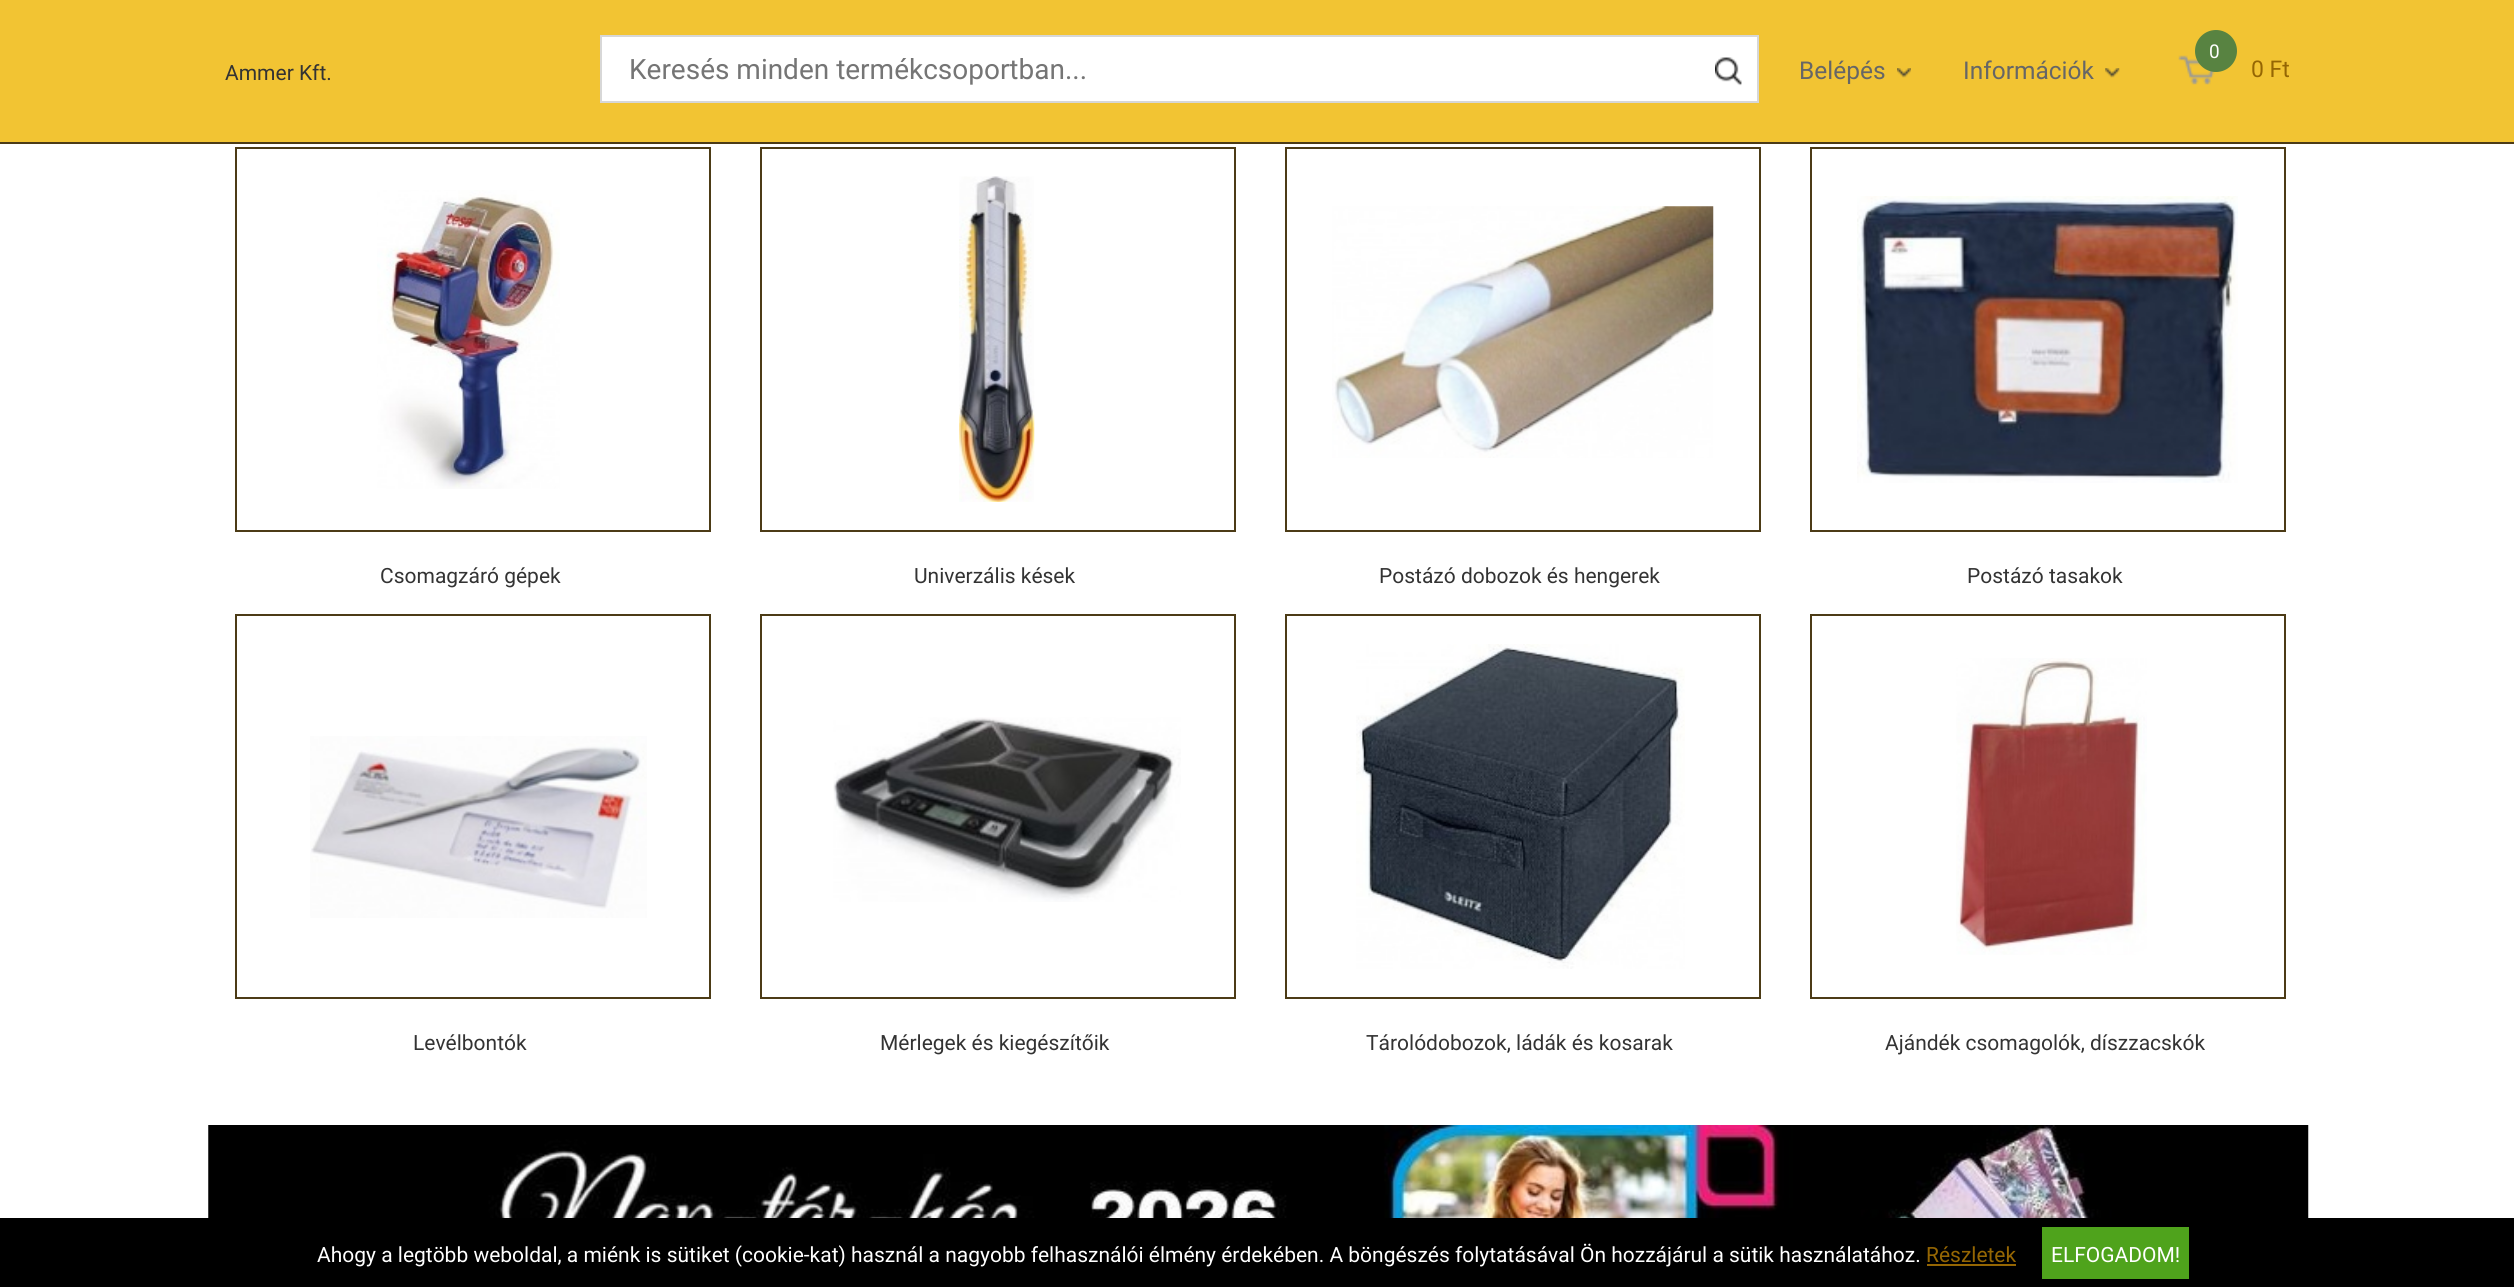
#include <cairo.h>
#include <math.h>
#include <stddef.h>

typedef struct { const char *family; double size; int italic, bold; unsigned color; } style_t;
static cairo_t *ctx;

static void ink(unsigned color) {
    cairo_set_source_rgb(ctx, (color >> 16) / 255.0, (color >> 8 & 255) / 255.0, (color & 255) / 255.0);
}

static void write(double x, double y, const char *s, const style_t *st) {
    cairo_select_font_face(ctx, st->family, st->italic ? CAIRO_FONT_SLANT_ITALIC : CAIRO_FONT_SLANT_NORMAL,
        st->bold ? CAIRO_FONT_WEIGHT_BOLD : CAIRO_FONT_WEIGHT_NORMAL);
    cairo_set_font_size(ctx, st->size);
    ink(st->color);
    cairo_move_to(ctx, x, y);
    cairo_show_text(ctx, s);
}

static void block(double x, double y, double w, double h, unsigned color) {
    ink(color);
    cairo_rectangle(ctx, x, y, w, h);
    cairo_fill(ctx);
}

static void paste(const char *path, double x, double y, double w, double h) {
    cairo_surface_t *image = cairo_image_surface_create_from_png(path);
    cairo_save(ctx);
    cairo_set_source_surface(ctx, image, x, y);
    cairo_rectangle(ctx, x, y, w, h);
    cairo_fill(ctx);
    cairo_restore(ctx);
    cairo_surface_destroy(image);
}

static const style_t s1 = {"Roboto", 21, 0, 0, 0x333333};
static const style_t s2 = {"Roboto", 28, 0, 0, 0x757575};
static const style_t s3 = {"Roboto", 24.5, 0, 0, 0x666666};
static const style_t s4 = {"Roboto", 19, 0, 0, 0xffffff};
static const style_t s5 = {"Roboto", 23, 0, 0, 0x956603};
static const style_t s6 = {"Roboto", 21, 0, 0, 0xffffff};
static const style_t s7 = {"Roboto", 21, 0, 0, 0x956603};

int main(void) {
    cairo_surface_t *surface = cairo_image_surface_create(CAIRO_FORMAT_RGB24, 2514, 1287);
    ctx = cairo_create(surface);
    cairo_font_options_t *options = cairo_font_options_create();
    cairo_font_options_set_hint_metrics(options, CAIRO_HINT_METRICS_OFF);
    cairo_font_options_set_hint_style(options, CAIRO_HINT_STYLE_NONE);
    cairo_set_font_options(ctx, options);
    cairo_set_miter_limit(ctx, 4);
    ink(0xffffff);
    cairo_paint(ctx);
    block(0, 0, 2514, 142, 0xf2c433);
    block(0, 142, 2514, 2, 0x4c3b16);
    write(225, 80, "Ammer Kft.", &s1);
    ink(0xffffff);
    cairo_rectangle(ctx, 601, 36, 1157, 66);
    cairo_fill_preserve(ctx);
    ink(0xd7d7d7);
    cairo_stroke(ctx);
    write(629, 79, "Keresés minden termékcsoportban...", &s2);
    paste("pic1.png", 1715, 57, 27, 29);
    write(1799, 79, "Belépés", &s3);
    paste("pic2.png", 1897, 68, 14, 10);
    write(1963, 79, "Információk", &s3);
    paste("pic3.png", 2105, 68, 15, 10);
    paste("pic4.png", 2178, 55, 37, 30);
    ink(0x588341);
    cairo_arc(ctx, 2216, 51, 21, 0, 2 * M_PI);
    cairo_fill(ctx);
    write(2209, 58, "0", &s4);
    write(2251, 77, "0 Ft", &s5);
    cairo_rectangle(ctx, 236, 148, 474, 383);
    ink(0x4c3b16);
    cairo_stroke(ctx);
    paste("pic5.png", 377, 190, 183, 299);
    write(380, 583, "Csomagzáró gépek", &s1);
    cairo_rectangle(ctx, 761, 148, 474, 383);
    ink(0x4c3b16);
    cairo_stroke(ctx);
    paste("pic6.png", 959, 176, 76, 326);
    write(914, 583, "Univerzális kések", &s1);
    cairo_rectangle(ctx, 1286, 148, 474, 383);
    ink(0x4c3b16);
    cairo_stroke(ctx);
    paste("pic7.png", 1332, 206, 382, 252);
    write(1379, 583, "Postázó dobozok és hengerek", &s1);
    cairo_rectangle(ctx, 1811, 148, 474, 383);
    ink(0x4c3b16);
    cairo_stroke(ctx);
    paste("pic8.png", 1857, 196, 381, 287);
    write(1967, 583, "Postázó tasakok", &s1);
    cairo_rectangle(ctx, 236, 615, 474, 383);
    ink(0x4c3b16);
    cairo_stroke(ctx);
    paste("pic9.png", 310, 736, 337, 182);
    write(413, 1050, "Levélbontók", &s1);
    cairo_rectangle(ctx, 761, 615, 474, 383);
    ink(0x4c3b16);
    cairo_stroke(ctx);
    paste("pic10.png", 833, 717, 348, 185);
    write(880, 1050, "Mérlegek és kiegészítőik", &s1);
    cairo_rectangle(ctx, 1286, 615, 474, 383);
    ink(0x4c3b16);
    cairo_stroke(ctx);
    paste("pic11.png", 1356, 644, 329, 325);
    write(1366, 1050, "Tárolódobozok, ládák és kosarak", &s1);
    cairo_rectangle(ctx, 1811, 615, 474, 383);
    ink(0x4c3b16);
    cairo_stroke(ctx);
    paste("pic12.png", 1956, 658, 191, 297);
    write(1885, 1050, "Ajándék csomagolók, díszzacskók", &s1);
    paste("pic13.png", 208, 1125, 2101, 93);
    block(0, 1218, 2514, 69, 0x000000);
    write(317, 1262, "Ahogy a legtöbb weboldal, a miénk is sütiket (cookie-kat) használ a nagyobb felhasználói élmény érdekében. A böngészés folytatásával Ön hozzájárul a sütik használatához.", &s6);
    write(1926, 1262, "Részletek", &s7);
    block(1927, 1264, 89, 2, 0x956603);
    block(2042, 1227, 147, 52, 0x4fa31c);
    write(2051, 1262, "ELFOGADOM!", &s6);
    cairo_surface_write_to_png(surface, "screenshot.png");
    cairo_font_options_destroy(options);
    cairo_destroy(ctx);
    cairo_surface_destroy(surface);
    return 0;
}
